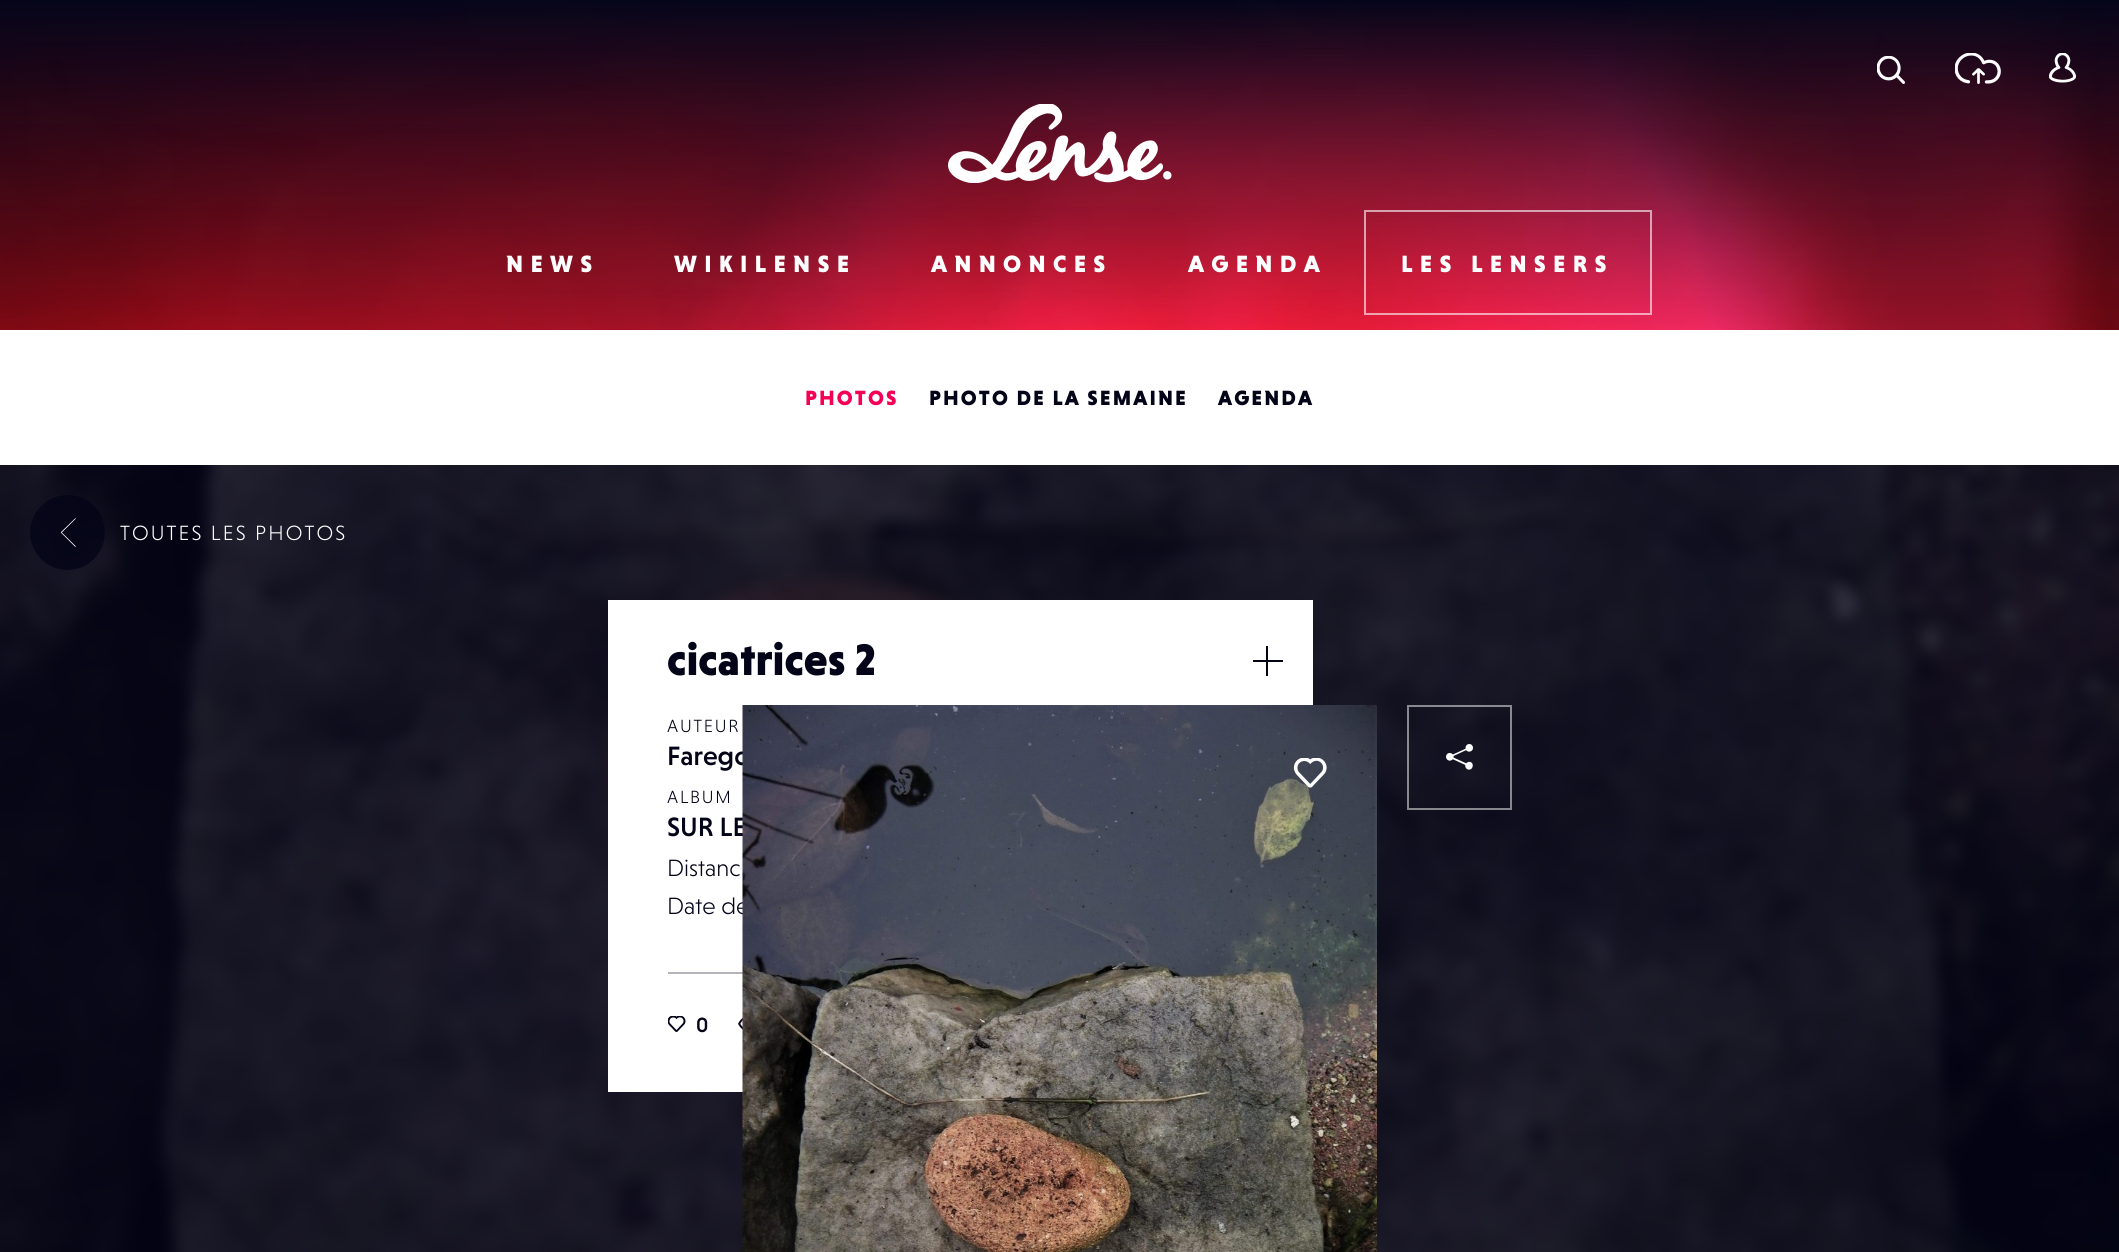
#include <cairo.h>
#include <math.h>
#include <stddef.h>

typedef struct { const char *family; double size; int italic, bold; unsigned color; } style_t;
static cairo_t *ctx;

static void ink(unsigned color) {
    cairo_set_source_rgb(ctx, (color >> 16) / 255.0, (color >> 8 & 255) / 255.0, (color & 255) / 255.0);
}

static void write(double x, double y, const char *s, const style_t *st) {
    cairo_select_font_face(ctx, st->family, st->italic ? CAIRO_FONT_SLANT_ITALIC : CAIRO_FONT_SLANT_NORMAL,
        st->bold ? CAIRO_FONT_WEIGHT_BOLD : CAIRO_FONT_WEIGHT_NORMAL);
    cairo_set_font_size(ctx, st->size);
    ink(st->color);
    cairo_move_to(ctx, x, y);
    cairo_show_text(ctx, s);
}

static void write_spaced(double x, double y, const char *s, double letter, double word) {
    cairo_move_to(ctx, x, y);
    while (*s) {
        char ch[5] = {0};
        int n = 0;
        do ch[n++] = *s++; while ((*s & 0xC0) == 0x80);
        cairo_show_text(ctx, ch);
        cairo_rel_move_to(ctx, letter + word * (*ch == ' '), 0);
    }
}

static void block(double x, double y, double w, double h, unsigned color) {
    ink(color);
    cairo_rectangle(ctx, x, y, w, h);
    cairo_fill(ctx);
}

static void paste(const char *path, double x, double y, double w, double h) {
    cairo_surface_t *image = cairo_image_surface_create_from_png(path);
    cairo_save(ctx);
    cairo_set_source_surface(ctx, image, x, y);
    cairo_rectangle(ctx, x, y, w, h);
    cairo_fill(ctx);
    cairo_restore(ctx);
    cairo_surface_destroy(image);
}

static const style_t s1 = {"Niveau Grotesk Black", 45, 0, 0, 0x040418};
static const style_t s2 = {"Niveau Grotesk Medium", 27, 0, 0, 0x040418};
static const style_t s3 = {"Niveau Grotesk Light", 24, 0, 0, 0x040418};
static const style_t s4 = {"Niveau Grotesk Medium", 21, 0, 0, 0x040418};

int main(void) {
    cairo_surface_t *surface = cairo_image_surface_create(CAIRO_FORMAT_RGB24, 2119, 1252);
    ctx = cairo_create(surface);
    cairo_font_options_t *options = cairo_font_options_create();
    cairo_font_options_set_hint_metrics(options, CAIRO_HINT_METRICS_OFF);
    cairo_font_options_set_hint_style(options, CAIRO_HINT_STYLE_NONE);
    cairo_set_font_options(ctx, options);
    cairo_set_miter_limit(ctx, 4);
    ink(0xffffff);
    cairo_paint(ctx);
    paste("pic7.png", 0, 0, 2119, 1252);
    paste("pic1.png", 0, 0, 2119, 330);
    paste("pic2.png", 1877, 56, 28, 28);
    paste("pic3.png", 1955, 53, 46, 31);
    paste("pic4.png", 1972, 68, 13, 16);
    paste("pic5.png", 2049, 53, 27, 30);
    paste("pic6.png", 948, 104, 224, 79);
    cairo_select_font_face(ctx, "Niveau Grotesk Black", CAIRO_FONT_SLANT_NORMAL, CAIRO_FONT_WEIGHT_NORMAL);
    cairo_set_font_size(ctx, 24);
    ink(0xffffff);
    write_spaced(506, 272, "NEWS", 7.25, 0);
    write_spaced(674, 272, "WIKILENSE", 7.25, 0);
    write_spaced(931, 272, "ANNONCES", 7.25, 0);
    write_spaced(1188, 272, "AGENDA", 7.25, 0);
    cairo_rectangle(ctx, 1365, 211, 286, 103);
    cairo_set_source_rgba(ctx, 1, 1, 1, 0.6);
    cairo_stroke(ctx);
    ink(0xffffff);
    write_spaced(1401, 272, "LES LENSERS", 7.25, 0);
    block(0, 330, 2119, 135, 0xffffff);
    cairo_set_font_size(ctx, 21);
    ink(0xf50057);
    write_spaced(805, 405, "PHOTOS", 2.1, 0);
    ink(0x040418);
    write_spaced(929, 405, "PHOTO DE LA SEMAINE", 2.1, 0);
    write_spaced(1218, 405, "AGENDA", 2.1, 0);
    cairo_set_source_rgba(ctx, 0.016, 0.016, 0.094, 0.8);
    cairo_rectangle(ctx, 0, 465, 2119, 787);
    cairo_fill(ctx);
    paste("pic8.png", 30, 495, 75, 75);
    cairo_select_font_face(ctx, "Niveau Grotesk Light", CAIRO_FONT_SLANT_NORMAL, CAIRO_FONT_WEIGHT_NORMAL);
    ink(0xffffff);
    write_spaced(120, 540, "TOUTES LES PHOTOS", 2.1, 0);
    block(608, 600, 705, 492, 0xffffff);
    write(667, 675, "cicatrices 2", &s1);
    block(1253, 660, 30, 2, 0x040418);
    block(1266, 646, 2, 30, 0x040418);
    cairo_select_font_face(ctx, "Niveau Grotesk Light", CAIRO_FONT_SLANT_NORMAL, CAIRO_FONT_WEIGHT_NORMAL);
    cairo_set_font_size(ctx, 18);
    write_spaced(667, 732, "AUTEUR", 1.75, 0);
    write(667, 765, "Farego", &s2);
    cairo_select_font_face(ctx, "Niveau Grotesk Light", CAIRO_FONT_SLANT_NORMAL, CAIRO_FONT_WEIGHT_NORMAL);
    cairo_set_font_size(ctx, 18);
    write_spaced(667, 803, "ALBUM", 1.75, 0);
    write(667, 836, "SUR LE", &s2);
    write(667, 876, "Distanc", &s3);
    write(667, 914, "Date de", &s3);
    block(668, 972, 75, 2, 0xb4b4ba);
    paste("pic9.png", 668, 1016, 18, 16);
    write(696, 1032, "0", &s4);
    paste("pic10.png", 738, 1017, 5, 13);
    paste("pic11.png", 742, 705, 635, 547);
    paste("pic12.png", 1293, 758, 34, 30);
    cairo_rectangle(ctx, 1408, 706, 103, 103);
    cairo_set_source_rgba(ctx, 1, 1, 1, 0.5);
    cairo_stroke(ctx);
    paste("pic13.png", 1446, 744, 27, 26);
    cairo_surface_write_to_png(surface, "screenshot.png");
    cairo_font_options_destroy(options);
    cairo_destroy(ctx);
    cairo_surface_destroy(surface);
    return 0;
}
